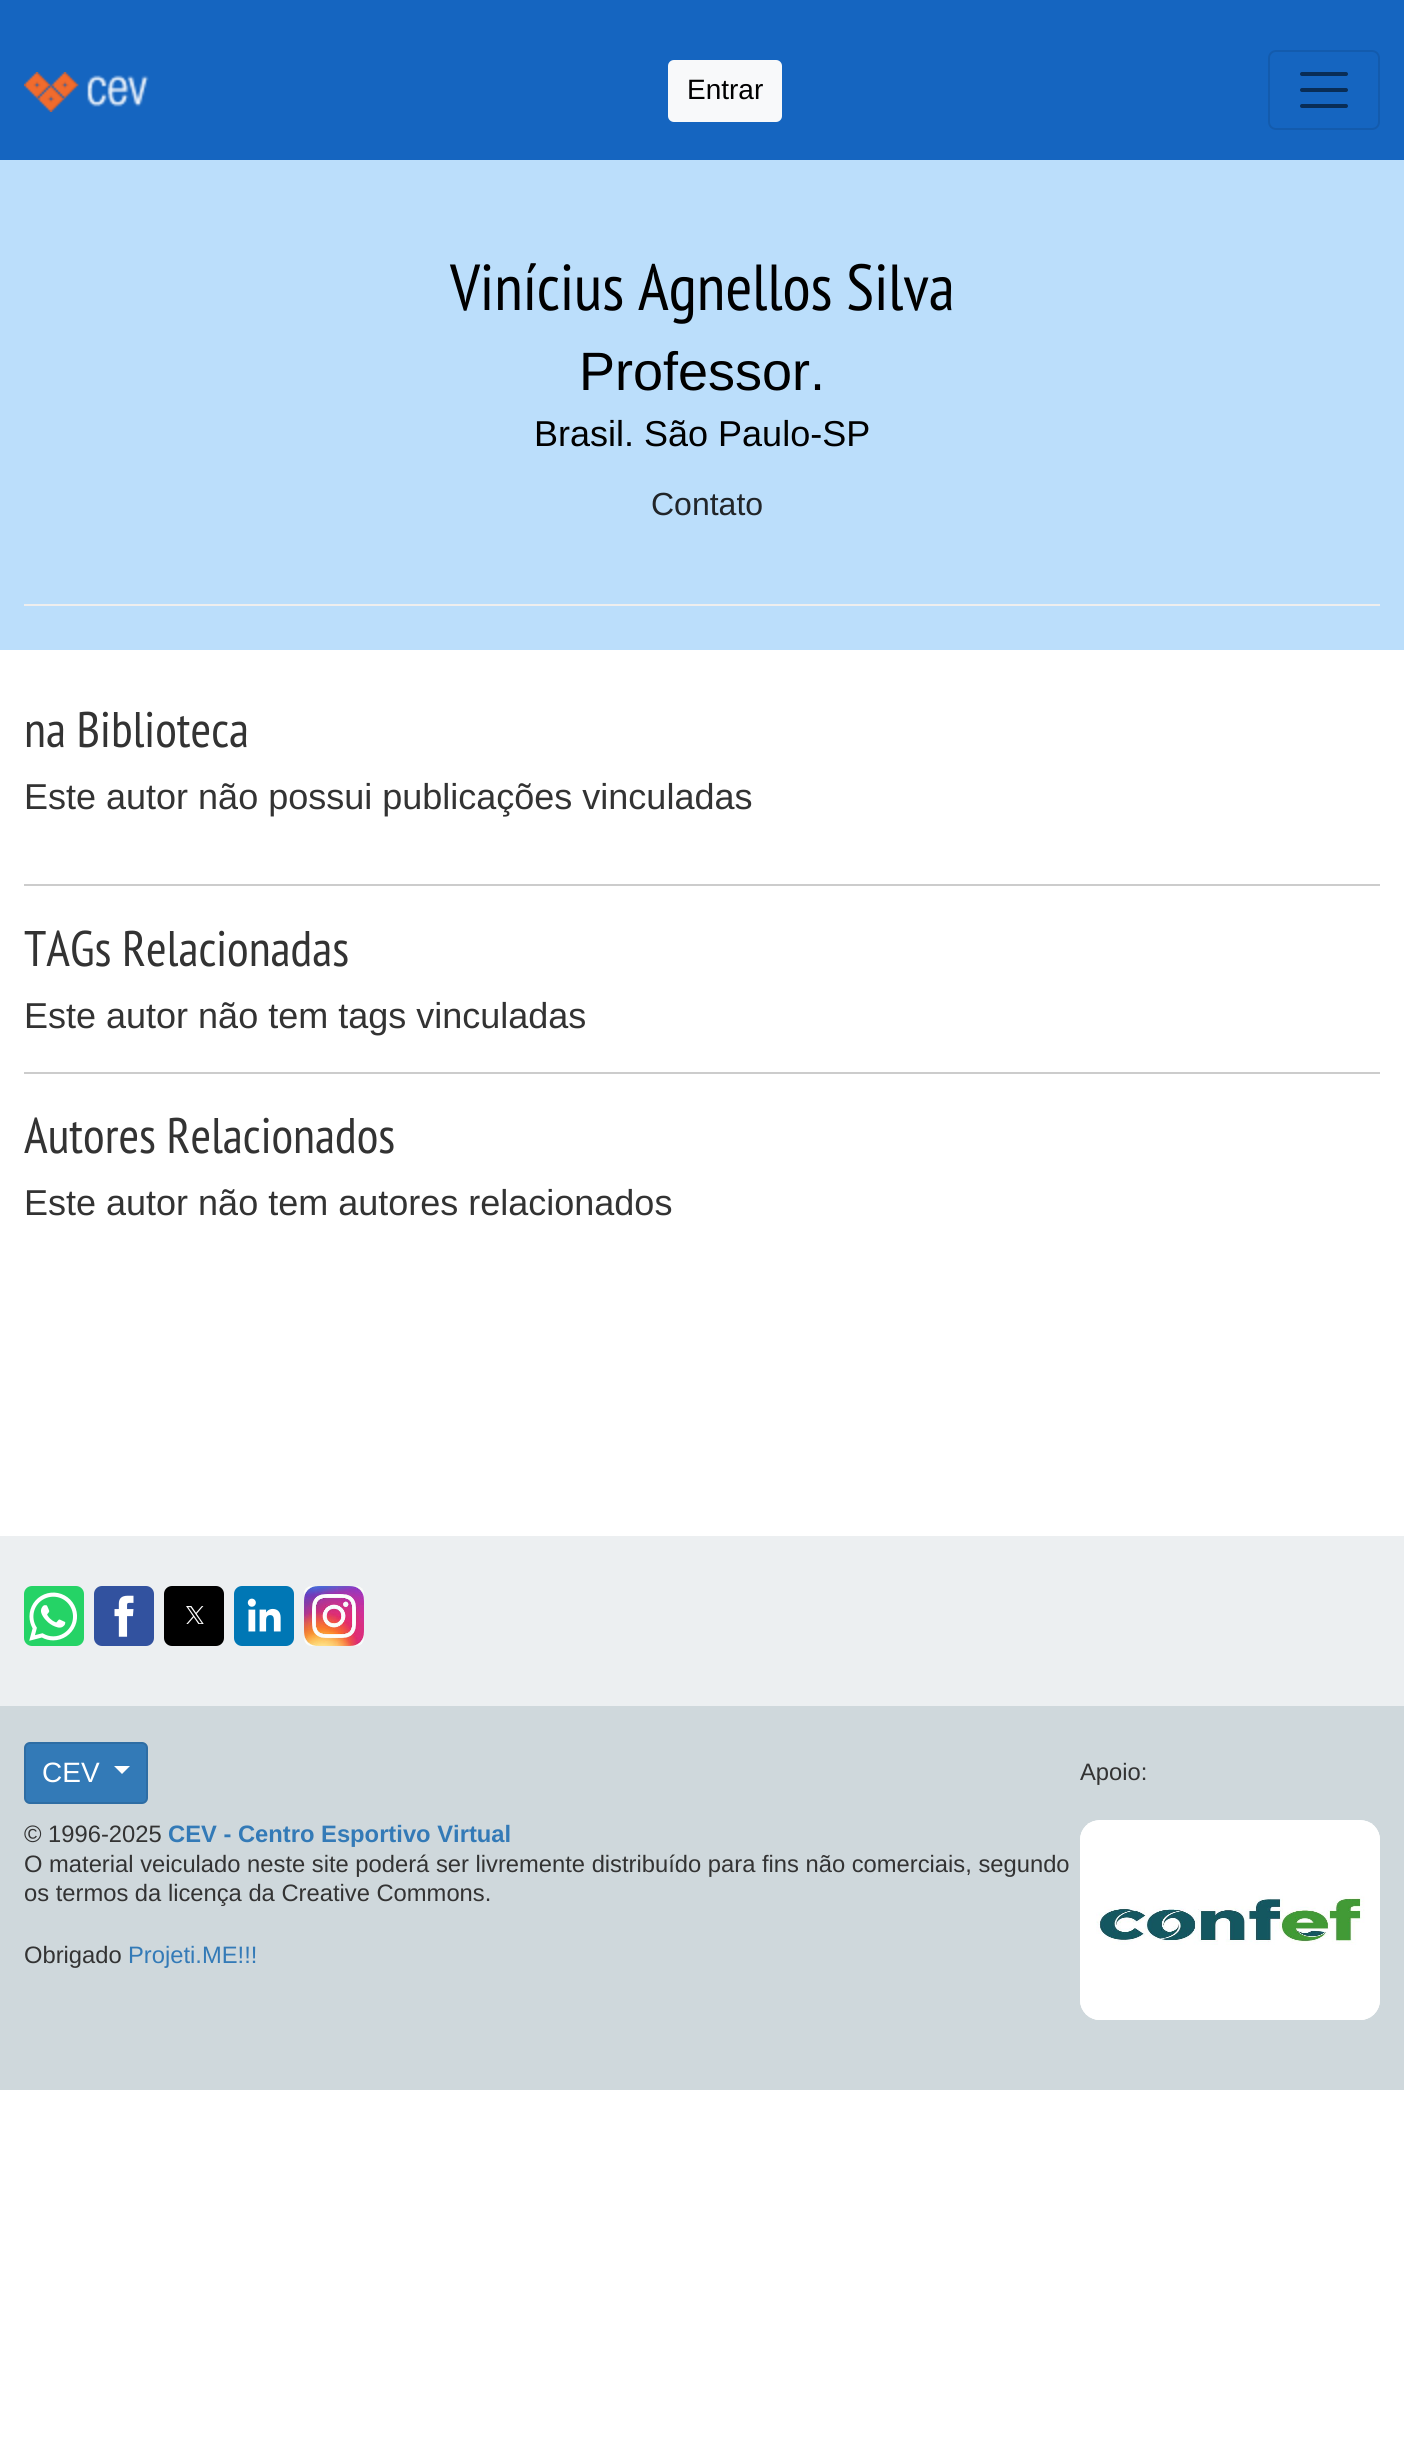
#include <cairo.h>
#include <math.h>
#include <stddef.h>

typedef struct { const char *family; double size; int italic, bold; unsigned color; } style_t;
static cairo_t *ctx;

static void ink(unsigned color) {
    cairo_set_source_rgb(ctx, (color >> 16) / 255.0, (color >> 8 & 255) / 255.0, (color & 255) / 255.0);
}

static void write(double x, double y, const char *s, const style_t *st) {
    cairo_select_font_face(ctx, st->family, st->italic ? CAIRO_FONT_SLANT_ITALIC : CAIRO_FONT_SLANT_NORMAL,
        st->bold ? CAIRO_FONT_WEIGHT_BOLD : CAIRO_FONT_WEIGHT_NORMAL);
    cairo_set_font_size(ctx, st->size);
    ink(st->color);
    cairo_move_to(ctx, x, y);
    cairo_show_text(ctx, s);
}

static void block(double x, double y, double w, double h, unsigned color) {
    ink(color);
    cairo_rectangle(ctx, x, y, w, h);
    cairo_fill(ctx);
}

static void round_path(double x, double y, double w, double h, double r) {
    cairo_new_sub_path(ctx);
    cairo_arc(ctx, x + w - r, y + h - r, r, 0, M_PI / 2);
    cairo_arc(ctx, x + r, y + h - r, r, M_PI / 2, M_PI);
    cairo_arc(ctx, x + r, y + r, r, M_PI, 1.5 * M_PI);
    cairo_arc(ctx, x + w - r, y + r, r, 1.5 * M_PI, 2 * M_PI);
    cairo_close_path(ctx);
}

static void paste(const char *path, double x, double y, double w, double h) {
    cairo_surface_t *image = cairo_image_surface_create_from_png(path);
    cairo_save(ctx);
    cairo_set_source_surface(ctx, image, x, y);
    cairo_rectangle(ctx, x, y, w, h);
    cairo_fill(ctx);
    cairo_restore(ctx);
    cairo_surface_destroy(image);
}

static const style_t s1 = {"Liberation Sans", 28, 0, 0, 0x000000};
static const style_t s2 = {"PT Sans Narrow", 65, 0, 0, 0x000000};
static const style_t s3 = {"Liberation Sans", 54, 0, 0, 0x000000};
static const style_t s4 = {"Liberation Sans", 36, 0, 0, 0x000000};
static const style_t s5 = {"Liberation Sans", 32, 0, 0, 0x212529};
static const style_t s6 = {"PT Sans Narrow", 50, 0, 0, 0x333333};
static const style_t s7 = {"Liberation Sans", 36, 0, 0, 0x333333};
static const style_t s8 = {"Liberation Sans", 28, 0, 0, 0xffffff};
static const style_t s9 = {"Liberation Sans", 23.75, 0, 0, 0x333333};
static const style_t s10 = {"Liberation Sans", 23.75, 0, 1, 0x337ab7};
static const style_t s11 = {"Liberation Sans", 23.75, 0, 0, 0x337ab7};

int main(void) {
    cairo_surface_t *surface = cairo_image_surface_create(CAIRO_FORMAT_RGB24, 1404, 2459);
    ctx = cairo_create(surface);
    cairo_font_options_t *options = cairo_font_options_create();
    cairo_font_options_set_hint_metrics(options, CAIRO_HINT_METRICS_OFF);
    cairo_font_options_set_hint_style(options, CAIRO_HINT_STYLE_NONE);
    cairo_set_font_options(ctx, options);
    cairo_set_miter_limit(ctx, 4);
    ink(0xffffff);
    cairo_paint(ctx);
    block(0, 0, 1404, 160, 0x1565c0);
    paste("pic1.png", 24, 72, 125, 40);
    ink(0xf8f9fa);
    round_path(669, 61, 112, 60, 5);
    cairo_fill_preserve(ctx);
    cairo_stroke(ctx);
    write(687, 99, "Entrar", &s1);
    round_path(1269, 51, 110, 78, 7);
    ink(0x135bad);
    cairo_stroke(ctx);
    cairo_new_path(ctx);
    cairo_move_to(ctx, 1302, 74);
    cairo_line_to(ctx, 1346, 74);
    cairo_move_to(ctx, 1302, 90);
    cairo_line_to(ctx, 1346, 90);
    cairo_move_to(ctx, 1302, 106);
    cairo_line_to(ctx, 1346, 106);
    ink(0x092d56);
    cairo_set_line_width(ctx, 4);
    cairo_set_line_cap(ctx, CAIRO_LINE_CAP_ROUND);
    cairo_stroke(ctx);
    block(0, 160, 1404, 490, 0xbbdefb);
    block(24, 604, 1356, 2, 0xeeeeee);
    write(450, 310, "Vinícius Agnellos Silva", &s2);
    write(579, 390, "Professor.", &s3);
    write(534, 446, "Brasil. São Paulo-SP", &s4);
    write(651, 515, "Contato", &s5);
    write(24, 747, "na Biblioteca", &s6);
    write(24, 809, "Este autor não possui publicações vinculadas", &s7);
    block(24, 884, 1356, 2, 0xcccccc);
    write(24, 966, "TAGs Relacionadas", &s6);
    write(24, 1028, "Este autor não tem tags vinculadas", &s7);
    block(24, 1072, 1356, 2, 0xcccccc);
    write(24, 1153, "Autores Relacionados", &s6);
    write(24, 1215, "Este autor não tem autores relacionados", &s7);
    block(0, 1536, 1404, 170, 0xeceff1);
    ink(0x25d366);
    round_path(24, 1586, 60, 60, 8);
    cairo_fill(ctx);
    paste("pic2.png", 29, 1592, 48, 49);
    ink(0x32529f);
    round_path(94, 1586, 60, 60, 8);
    cairo_fill(ctx);
    paste("pic3.png", 114, 1595, 20, 42);
    ink(0x000000);
    round_path(164, 1586, 60, 60, 8);
    cairo_fill(ctx);
    paste("pic4.png", 186, 1606, 18, 18);
    ink(0x0077b5);
    round_path(234, 1586, 60, 60, 8);
    cairo_fill(ctx);
    paste("pic5.png", 247, 1598, 34, 34);
    paste("pic6.png", 304, 1586, 60, 60);
    block(0, 1706, 1404, 384, 0xcfd8dc);
    ink(0x337ab7);
    round_path(25, 1743, 122, 60, 5);
    cairo_fill_preserve(ctx);
    ink(0x2e6da4);
    cairo_set_line_width(ctx, 2);
    cairo_set_line_cap(ctx, CAIRO_LINE_CAP_BUTT);
    cairo_stroke(ctx);
    write(42, 1782, "CEV", &s8);
    cairo_new_path(ctx);
    cairo_move_to(ctx, 114, 1766);
    cairo_line_to(ctx, 130, 1766);
    cairo_line_to(ctx, 122, 1774);
    cairo_close_path(ctx);
    cairo_fill(ctx);
    write(1080, 1780, "Apoio:", &s9);
    paste("pic7.png", 1080, 1820, 300, 200);
    paste("pic8.png", 1080, 1820, 300, 200);
    write(24, 1842, "© 1996-2025", &s9);
    write(168, 1842, "CEV - Centro Esportivo Virtual", &s10);
    write(24, 1872, "O material veiculado neste site poderá ser livremente distribuído para fins não comerciais, segundo", &s9);
    write(24, 1901, "os termos da licença da Creative Commons.", &s9);
    write(24, 1963, "Obrigado", &s9);
    write(128, 1963, "Projeti.ME!!!", &s11);
    cairo_surface_write_to_png(surface, "screenshot.png");
    cairo_font_options_destroy(options);
    cairo_destroy(ctx);
    cairo_surface_destroy(surface);
    return 0;
}
